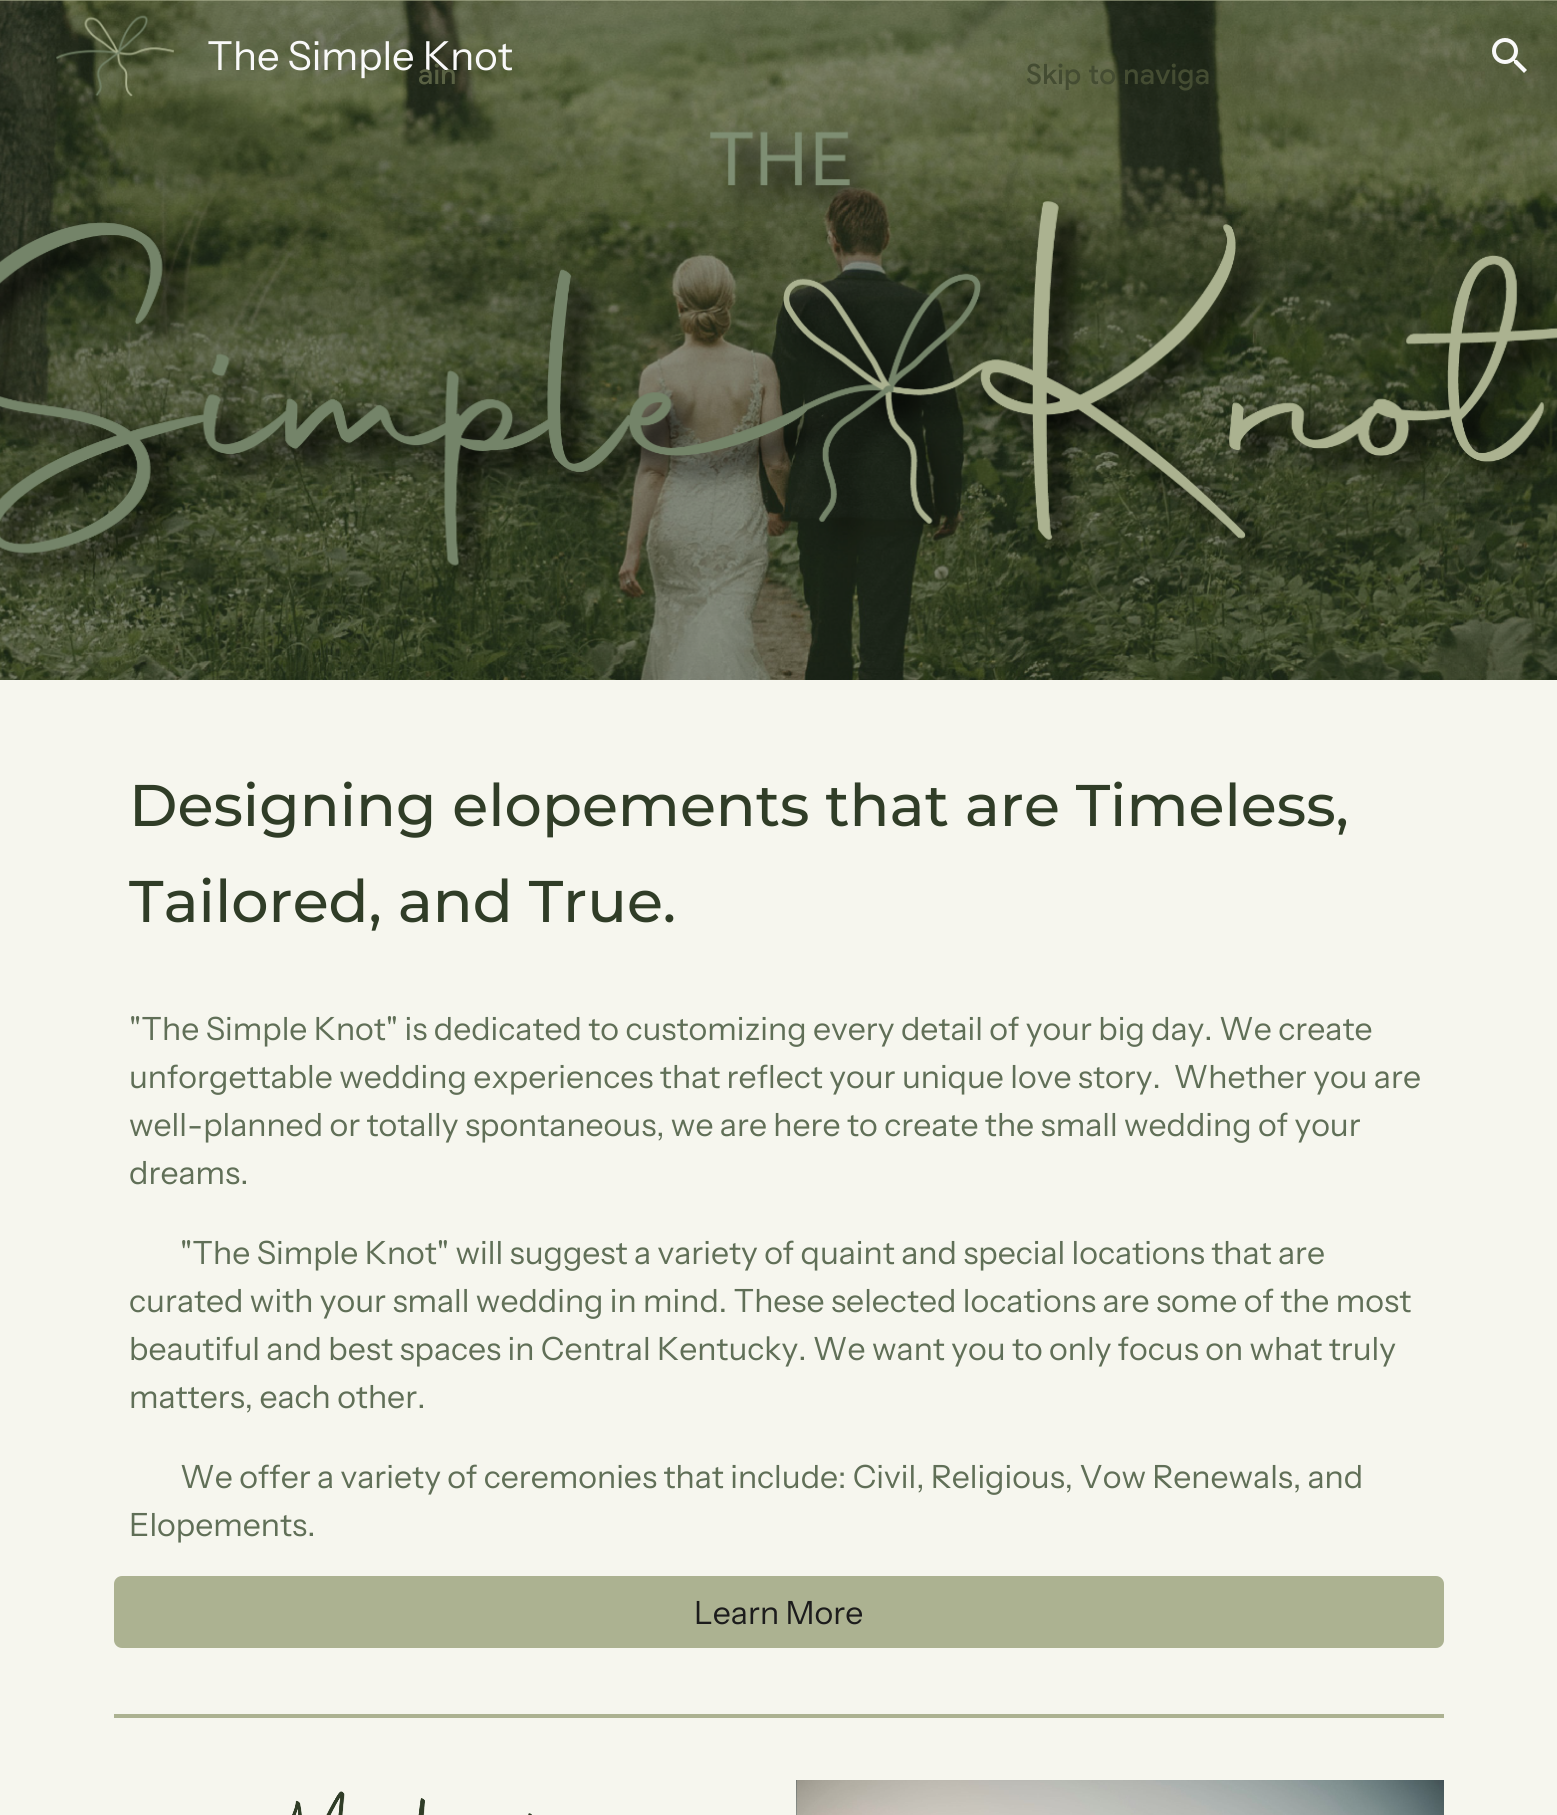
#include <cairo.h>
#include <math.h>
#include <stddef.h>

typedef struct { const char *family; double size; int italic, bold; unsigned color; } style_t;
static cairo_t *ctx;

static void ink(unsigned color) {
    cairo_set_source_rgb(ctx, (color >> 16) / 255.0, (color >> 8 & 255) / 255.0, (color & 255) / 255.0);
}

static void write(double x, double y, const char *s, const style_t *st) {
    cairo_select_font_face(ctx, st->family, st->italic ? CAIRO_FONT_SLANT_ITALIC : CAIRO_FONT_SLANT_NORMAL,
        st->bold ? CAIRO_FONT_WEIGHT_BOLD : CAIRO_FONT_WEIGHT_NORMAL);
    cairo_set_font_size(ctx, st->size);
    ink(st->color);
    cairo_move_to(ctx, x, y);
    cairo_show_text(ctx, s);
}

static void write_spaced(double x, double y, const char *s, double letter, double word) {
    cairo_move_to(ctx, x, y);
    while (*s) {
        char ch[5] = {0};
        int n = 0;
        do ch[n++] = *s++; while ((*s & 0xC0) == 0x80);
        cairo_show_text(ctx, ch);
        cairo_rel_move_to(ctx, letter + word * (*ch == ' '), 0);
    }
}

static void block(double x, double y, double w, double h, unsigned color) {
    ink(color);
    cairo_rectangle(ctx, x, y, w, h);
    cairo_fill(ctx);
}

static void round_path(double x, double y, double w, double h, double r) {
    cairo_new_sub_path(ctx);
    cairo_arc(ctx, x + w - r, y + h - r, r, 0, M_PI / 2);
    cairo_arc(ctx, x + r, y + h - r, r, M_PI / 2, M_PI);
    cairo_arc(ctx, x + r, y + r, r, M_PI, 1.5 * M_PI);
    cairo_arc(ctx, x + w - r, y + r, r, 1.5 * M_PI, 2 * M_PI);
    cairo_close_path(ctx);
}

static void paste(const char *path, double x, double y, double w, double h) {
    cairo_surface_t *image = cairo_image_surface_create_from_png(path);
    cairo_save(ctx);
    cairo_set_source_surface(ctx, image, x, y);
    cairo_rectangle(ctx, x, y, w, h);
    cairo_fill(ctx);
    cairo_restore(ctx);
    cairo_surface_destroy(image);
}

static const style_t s1 = {"Instrument Sans", 40, 0, 0, 0xf9f9f9};
static const style_t s2 = {"Montserrat Medium", 58.7, 0, 0, 0x303d27};
static const style_t s3 = {"Instrument Sans", 32, 0, 0, 0x606f57};
static const style_t s4 = {"Instrument Sans", 32, 0, 0, 0x1c1c1c};

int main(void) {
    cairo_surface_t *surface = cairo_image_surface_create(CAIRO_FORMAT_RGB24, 1557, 1815);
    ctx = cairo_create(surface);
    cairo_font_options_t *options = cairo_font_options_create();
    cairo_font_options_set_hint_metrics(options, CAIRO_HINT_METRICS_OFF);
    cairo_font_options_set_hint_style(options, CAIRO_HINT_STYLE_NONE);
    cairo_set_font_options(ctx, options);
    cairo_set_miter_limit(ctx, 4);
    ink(0xf6f6ee);
    cairo_paint(ctx);
    block(0, 0, 1557, 1, 0xacb291);
    paste("pic3.png", 0, 0, 1557, 680);
    paste("pic1.png", 56, 15, 118, 82);
    write(207, 70, "The Simple Knot", &s1);
    paste("pic2.png", 1492, 38, 35, 35);
    write(129, 826, "Designing elopements that are Timeless,", &s2);
    write(129, 922, "Tailored, and True.", &s2);
    write(129, 1040, "\"The Simple Knot\" is dedicated to customizing every detail of your big day. We create", &s3);
    write(129, 1088, "unforgettable wedding experiences that reflect your unique love story.  Whether you are", &s3);
    write(129, 1136, "well-planned or totally spontaneous, we are here to create the small wedding of your", &s3);
    write(129, 1184, "dreams.", &s3);
    write(180, 1264, "\"The Simple Knot\" will suggest a variety of quaint and special locations that are", &s3);
    write(129, 1312, "curated with your small wedding in mind. These selected locations are some of the most", &s3);
    write(129, 1360, "beautiful and best spaces in Central Kentucky. We want you to only focus on what truly", &s3);
    write(129, 1408, "matters, each other.", &s3);
    write(180, 1488, "We offer a variety of ceremonies that include: Civil, Religious, Vow Renewals, and", &s3);
    write(129, 1536, "Elopements.", &s3);
    ink(0xacb291);
    round_path(115, 1577, 1328, 70, 7);
    cairo_fill_preserve(ctx);
    cairo_stroke(ctx);
    write(694, 1624, "Learn More", &s4);
    block(114, 1714, 1330, 4, 0xacb291);
    paste("pic4.png", 292, 1791, 240, 24);
    paste("pic5.png", 796, 1780, 648, 35);
    cairo_select_font_face(ctx, "Google Sans Medium", CAIRO_FONT_SLANT_NORMAL, CAIRO_FONT_WEIGHT_NORMAL);
    cairo_set_font_size(ctx, 28);
    ink(0x596143);
    write_spaced(418, 84, "ain", 0.25, 0);
    ink(0x444c32);
    write_spaced(1026, 84, "Skip to naviga", 0.25, 0);
    cairo_surface_write_to_png(surface, "screenshot.png");
    cairo_font_options_destroy(options);
    cairo_destroy(ctx);
    cairo_surface_destroy(surface);
    return 0;
}
